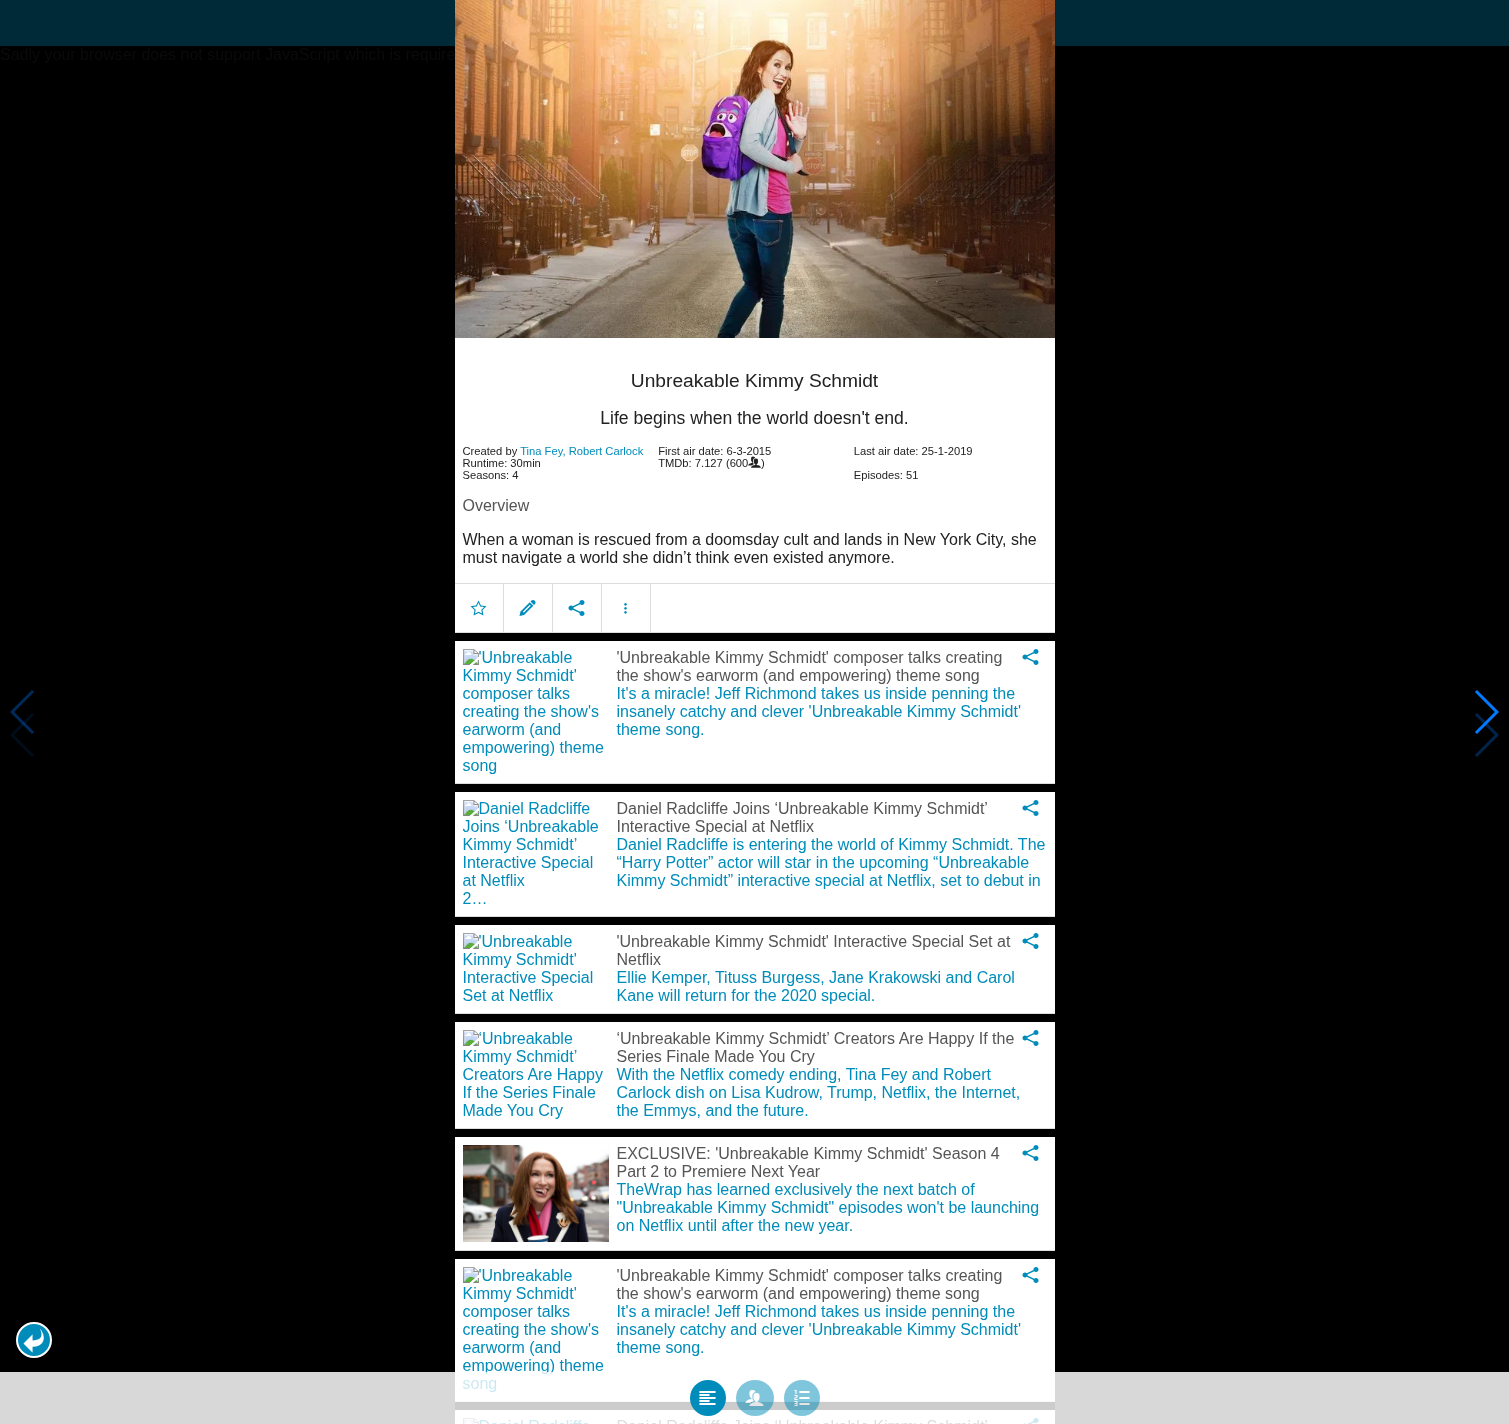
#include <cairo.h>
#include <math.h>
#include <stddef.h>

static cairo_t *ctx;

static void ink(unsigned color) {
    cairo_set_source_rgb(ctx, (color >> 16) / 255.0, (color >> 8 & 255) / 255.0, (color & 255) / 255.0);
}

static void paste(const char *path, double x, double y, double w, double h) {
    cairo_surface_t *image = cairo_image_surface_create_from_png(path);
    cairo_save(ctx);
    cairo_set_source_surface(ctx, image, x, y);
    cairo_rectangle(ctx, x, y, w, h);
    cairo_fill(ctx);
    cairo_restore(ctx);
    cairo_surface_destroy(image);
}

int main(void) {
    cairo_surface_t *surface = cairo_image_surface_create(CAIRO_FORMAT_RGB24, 1509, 1424);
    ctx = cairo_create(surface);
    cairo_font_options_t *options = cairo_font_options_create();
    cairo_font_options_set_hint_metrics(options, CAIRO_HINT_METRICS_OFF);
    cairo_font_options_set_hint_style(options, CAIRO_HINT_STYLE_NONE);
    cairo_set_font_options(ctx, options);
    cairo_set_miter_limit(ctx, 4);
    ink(0xffffff);
    cairo_paint(ctx);
    paste("pic1.png", 0, 0, 1509, 1424);
    cairo_surface_write_to_png(surface, "screenshot.png");
    cairo_font_options_destroy(options);
    cairo_destroy(ctx);
    cairo_surface_destroy(surface);
    return 0;
}
